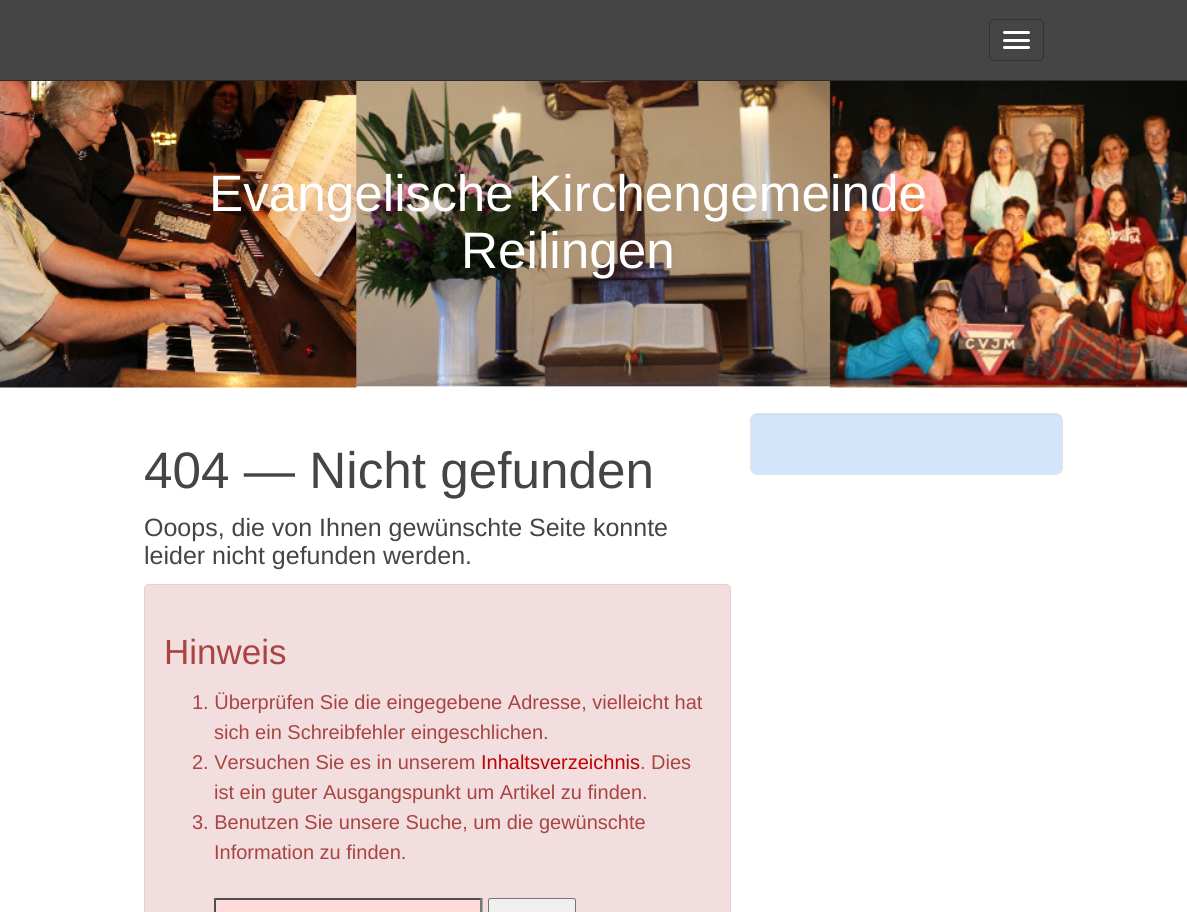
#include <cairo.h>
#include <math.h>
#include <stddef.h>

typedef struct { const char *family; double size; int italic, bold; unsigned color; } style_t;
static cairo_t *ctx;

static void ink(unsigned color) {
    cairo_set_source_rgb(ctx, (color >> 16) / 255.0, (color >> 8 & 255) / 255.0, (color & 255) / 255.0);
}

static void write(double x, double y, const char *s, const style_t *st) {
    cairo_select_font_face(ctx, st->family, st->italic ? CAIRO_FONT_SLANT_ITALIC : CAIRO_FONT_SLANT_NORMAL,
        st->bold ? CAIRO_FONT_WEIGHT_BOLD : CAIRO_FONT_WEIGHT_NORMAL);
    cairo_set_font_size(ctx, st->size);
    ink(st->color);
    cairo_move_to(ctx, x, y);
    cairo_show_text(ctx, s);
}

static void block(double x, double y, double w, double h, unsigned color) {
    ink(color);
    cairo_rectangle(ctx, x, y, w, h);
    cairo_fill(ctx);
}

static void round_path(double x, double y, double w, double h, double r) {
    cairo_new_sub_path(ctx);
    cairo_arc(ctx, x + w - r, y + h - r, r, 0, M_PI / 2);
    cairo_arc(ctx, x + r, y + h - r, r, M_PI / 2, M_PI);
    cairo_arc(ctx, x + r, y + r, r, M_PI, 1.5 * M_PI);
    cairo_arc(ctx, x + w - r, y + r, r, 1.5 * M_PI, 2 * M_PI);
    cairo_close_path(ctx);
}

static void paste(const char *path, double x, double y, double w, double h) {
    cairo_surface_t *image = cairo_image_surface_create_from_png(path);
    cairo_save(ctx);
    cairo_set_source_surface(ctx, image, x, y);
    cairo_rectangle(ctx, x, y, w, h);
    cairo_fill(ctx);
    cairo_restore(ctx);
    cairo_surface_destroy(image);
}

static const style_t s1 = {"Liberation Sans", 51.25, 0, 0, 0xffffff};
static const style_t s2 = {"Liberation Sans", 51.25, 0, 0, 0x454545};
static const style_t s3 = {"Liberation Sans", 25, 0, 0, 0x454545};
static const style_t s4 = {"Liberation Sans", 35, 0, 0, 0xa94442};
static const style_t s5 = {"Liberation Sans", 20, 0, 0, 0xa94442};
static const style_t s6 = {"Liberation Sans", 20, 0, 0, 0xc00101};

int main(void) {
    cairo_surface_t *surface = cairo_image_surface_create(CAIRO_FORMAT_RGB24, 1187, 912);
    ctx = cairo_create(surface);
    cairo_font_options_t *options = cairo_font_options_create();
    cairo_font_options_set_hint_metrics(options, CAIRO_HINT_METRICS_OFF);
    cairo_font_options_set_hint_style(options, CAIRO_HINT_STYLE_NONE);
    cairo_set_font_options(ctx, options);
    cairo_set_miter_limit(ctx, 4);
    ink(0xffffff);
    cairo_paint(ctx);
    block(0, 0, 1187, 80, 0x454545);
    block(0, 80, 1187, 1, 0x2b2b2b);
    round_path(989.5, 19.5, 54, 41, 4.5);
    ink(0x333333);
    cairo_set_line_width(ctx, 1);
    cairo_stroke(ctx);
    ink(0xffffff);
    round_path(1003, 31, 27, 3, 1.5);
    cairo_fill(ctx);
    round_path(1003, 39, 27, 3, 1.5);
    cairo_fill(ctx);
    round_path(1003, 46, 27, 3, 1.5);
    cairo_fill(ctx);
    paste("pic1.png", 0, 81, 1187, 307);
    write(209, 211, "Evangelische Kirchengemeinde", &s1);
    write(461, 268, "Reilingen", &s1);
    write(144, 488, "404 — Nicht gefunden", &s2);
    write(144, 536, "Ooops, die von Ihnen gewünschte Seite konnte", &s3);
    write(144, 564, "leider nicht gefunden werden.", &s3);
    ink(0xf2dede);
    round_path(144.5, 584.5, 586, 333, 4.5);
    cairo_fill_preserve(ctx);
    ink(0xebccd1);
    cairo_stroke(ctx);
    write(164, 664, "Hinweis", &s4);
    write(192, 709, "1. Überprüfen Sie die eingegebene Adresse, vielleicht hat", &s5);
    write(214, 739, "sich ein Schreibfehler eingeschlichen.", &s5);
    write(192, 769, "2. Versuchen Sie es in unserem", &s5);
    write(481, 769, "Inhaltsverzeichnis", &s6);
    write(640, 769, ". Dies", &s5);
    write(214, 799, "ist ein guter Ausgangspunkt um Artikel zu finden.", &s5);
    write(192, 829, "3. Benutzen Sie unsere Suche, um die gewünschte", &s5);
    write(214, 859, "Information zu finden.", &s5);
    block(214, 898, 269, 14, 0xffdbdb);
    ink(0x4f4f4f);
    cairo_new_path(ctx);
    cairo_move_to(ctx, 214, 898);
    cairo_line_to(ctx, 482, 898);
    cairo_line_to(ctx, 480, 900);
    cairo_line_to(ctx, 216, 900);
    cairo_close_path(ctx);
    cairo_fill(ctx);
    ink(0x767676);
    cairo_new_path(ctx);
    cairo_move_to(ctx, 482.5, 897.5);
    cairo_line_to(ctx, 482.5, 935);
    cairo_line_to(ctx, 480, 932.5);
    cairo_line_to(ctx, 480, 900);
    cairo_close_path(ctx);
    cairo_fill(ctx);
    ink(0x4f4f4f);
    cairo_new_path(ctx);
    cairo_move_to(ctx, 214, 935);
    cairo_line_to(ctx, 214, 897.5);
    cairo_line_to(ctx, 216, 900);
    cairo_line_to(ctx, 216, 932.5);
    cairo_close_path(ctx);
    cairo_fill(ctx);
    ink(0xefefef);
    round_path(488.5, 898.5, 87, 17, 2);
    cairo_fill_preserve(ctx);
    ink(0x767676);
    cairo_stroke(ctx);
    ink(0xd3e5fa);
    round_path(750, 413, 313, 62, 8);
    cairo_fill(ctx);
    ink(0xc8daee);
    cairo_new_path(ctx);
    cairo_move_to(ctx, 758, 415);
    cairo_line_to(ctx, 1055, 415);
    cairo_curve_to(ctx, 1058, 415, 1061, 418, 1061, 421);
    cairo_curve_to(ctx, 1061, 417, 1059, 414, 1055, 414);
    cairo_line_to(ctx, 757, 414);
    cairo_curve_to(ctx, 753, 414, 751, 417, 751, 421);
    cairo_curve_to(ctx, 751, 418, 754, 415, 758, 415);
    cairo_close_path(ctx);
    cairo_fill(ctx);
    round_path(750.5, 413.5, 312, 61, 7.5);
    ink(0xe3e3e3);
    cairo_stroke(ctx);
    cairo_surface_write_to_png(surface, "screenshot.png");
    cairo_font_options_destroy(options);
    cairo_destroy(ctx);
    cairo_surface_destroy(surface);
    return 0;
}
